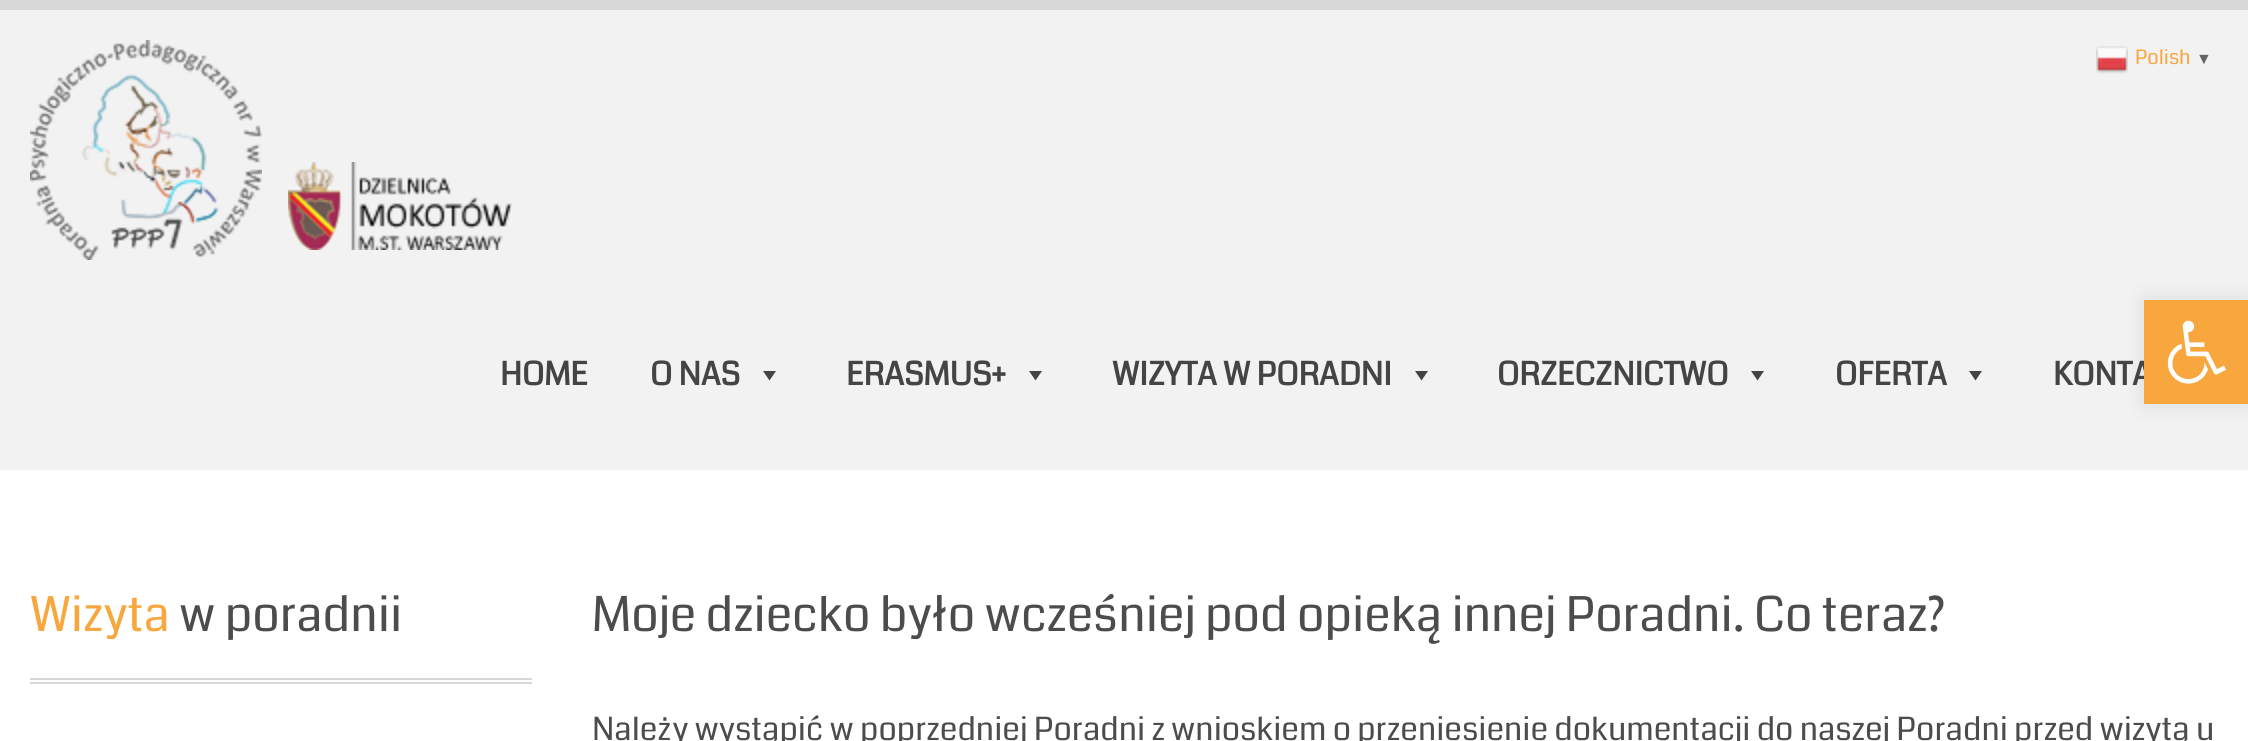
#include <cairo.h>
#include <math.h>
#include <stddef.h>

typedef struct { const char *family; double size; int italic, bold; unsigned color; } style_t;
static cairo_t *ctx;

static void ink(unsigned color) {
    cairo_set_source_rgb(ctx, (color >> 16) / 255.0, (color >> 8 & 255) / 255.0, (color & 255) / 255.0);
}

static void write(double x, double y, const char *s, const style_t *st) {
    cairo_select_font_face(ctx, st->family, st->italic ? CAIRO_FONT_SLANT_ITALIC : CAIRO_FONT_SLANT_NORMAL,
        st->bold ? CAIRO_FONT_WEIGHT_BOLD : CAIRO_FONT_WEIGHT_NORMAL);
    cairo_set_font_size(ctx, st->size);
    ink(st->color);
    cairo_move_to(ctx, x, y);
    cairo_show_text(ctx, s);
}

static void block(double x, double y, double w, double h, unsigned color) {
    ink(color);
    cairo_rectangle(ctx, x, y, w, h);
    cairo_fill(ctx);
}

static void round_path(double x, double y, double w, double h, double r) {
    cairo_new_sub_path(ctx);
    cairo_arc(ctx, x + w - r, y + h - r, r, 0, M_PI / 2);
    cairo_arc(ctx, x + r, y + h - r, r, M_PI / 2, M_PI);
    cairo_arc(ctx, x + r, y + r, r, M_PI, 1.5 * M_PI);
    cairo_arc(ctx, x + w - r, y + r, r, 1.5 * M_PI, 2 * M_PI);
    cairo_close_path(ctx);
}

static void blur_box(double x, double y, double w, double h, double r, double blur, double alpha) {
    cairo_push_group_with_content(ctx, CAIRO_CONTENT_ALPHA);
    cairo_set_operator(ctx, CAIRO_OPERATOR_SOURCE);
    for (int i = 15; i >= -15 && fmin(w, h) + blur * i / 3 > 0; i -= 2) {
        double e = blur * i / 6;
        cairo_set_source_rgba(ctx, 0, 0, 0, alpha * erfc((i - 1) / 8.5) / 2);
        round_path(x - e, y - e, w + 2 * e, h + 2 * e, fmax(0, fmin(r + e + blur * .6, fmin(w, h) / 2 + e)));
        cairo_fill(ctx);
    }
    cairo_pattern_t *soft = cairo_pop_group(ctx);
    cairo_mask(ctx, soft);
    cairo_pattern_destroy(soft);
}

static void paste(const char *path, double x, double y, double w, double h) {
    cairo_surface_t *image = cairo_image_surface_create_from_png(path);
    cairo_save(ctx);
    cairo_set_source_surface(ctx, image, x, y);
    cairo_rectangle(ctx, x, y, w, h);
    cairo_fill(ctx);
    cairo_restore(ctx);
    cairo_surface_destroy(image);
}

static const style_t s1 = {"Coda", 20, 0, 0, 0xf7a73e};
static const style_t s2 = {"Liberation Sans", 16, 0, 1, 0x666666};
static const style_t s3 = {"Coda", 32, 0, 1, 0x444444};
static const style_t s4 = {"Coda", 48, 0, 0, 0xf7a73e};
static const style_t s5 = {"Coda", 48, 0, 0, 0x4c4c4c};
static const style_t s6 = {"Coda", 32, 0, 0, 0x4c4c4c};

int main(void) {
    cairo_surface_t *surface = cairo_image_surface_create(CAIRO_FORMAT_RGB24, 2248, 741);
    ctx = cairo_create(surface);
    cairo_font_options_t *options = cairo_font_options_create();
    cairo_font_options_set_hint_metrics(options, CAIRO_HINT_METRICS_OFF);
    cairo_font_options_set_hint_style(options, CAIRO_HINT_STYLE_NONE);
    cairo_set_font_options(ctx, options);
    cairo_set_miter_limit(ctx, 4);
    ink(0xffffff);
    cairo_paint(ctx);
    block(0, 10, 2248, 460, 0xf2f2f2);
    paste("pic1.png", 2096, 46, 32, 28);
    write(2135, 64, "Polish", &s1);
    write(2196, 64, "▼", &s2);
    ink(0x000000);
    blur_box(2144, 300, 104, 104, 0, 10, 0.1);
    write(2053, 385, "KONTA", &s3);
    block(2144, 300, 104, 104, 0xf7a73e);
    paste("pic2.png", 2167, 320, 59, 64);
    block(0, 0, 2248, 10, 0xd8d8d8);
    paste("pic3.png", 30, 40, 232, 220);
    paste("pic4.png", 288, 162, 224, 88);
    write(500, 385, "HOME", &s3);
    write(650, 385, "O NAS", &s3);
    cairo_new_path(ctx);
    cairo_move_to(ctx, 776, 371);
    cairo_line_to(ctx, 769.5, 380.5);
    cairo_line_to(ctx, 763, 371);
    cairo_close_path(ctx);
    cairo_fill(ctx);
    write(846, 385, "ERASMUS+", &s3);
    cairo_new_path(ctx);
    cairo_move_to(ctx, 1042, 371);
    cairo_line_to(ctx, 1035.5, 380.5);
    cairo_line_to(ctx, 1029, 371);
    cairo_close_path(ctx);
    cairo_fill(ctx);
    write(1112, 385, "WIZYTA W PORADNI", &s3);
    cairo_new_path(ctx);
    cairo_move_to(ctx, 1428, 371);
    cairo_line_to(ctx, 1421.5, 380.5);
    cairo_line_to(ctx, 1415, 371);
    cairo_close_path(ctx);
    cairo_fill(ctx);
    write(1497, 385, "ORZECZNICTWO", &s3);
    cairo_new_path(ctx);
    cairo_move_to(ctx, 1764, 371);
    cairo_line_to(ctx, 1757.5, 380.5);
    cairo_line_to(ctx, 1751, 371);
    cairo_close_path(ctx);
    cairo_fill(ctx);
    write(1835, 385, "OFERTA", &s3);
    cairo_new_path(ctx);
    cairo_move_to(ctx, 1982, 371);
    cairo_line_to(ctx, 1975.5, 380.5);
    cairo_line_to(ctx, 1969, 371);
    cairo_close_path(ctx);
    cairo_fill(ctx);
    block(30, 682, 502, 2, 0xd8d8d8);
    write(30, 631, "Wizyta", &s4);
    write(179, 631, "w poradnii", &s5);
    block(30, 678, 502, 2, 0xd8d8d8);
    write(592, 631, "Moje dziecko było wcześniej pod opieką innej Poradni. Co teraz?", &s5);
    write(592, 740, "Należy wystąpić w poprzedniej Poradni z wnioskiem o przeniesienie dokumentacji do naszej Poradni przed wizytą u", &s6);
    cairo_surface_write_to_png(surface, "screenshot.png");
    cairo_font_options_destroy(options);
    cairo_destroy(ctx);
    cairo_surface_destroy(surface);
    return 0;
}
